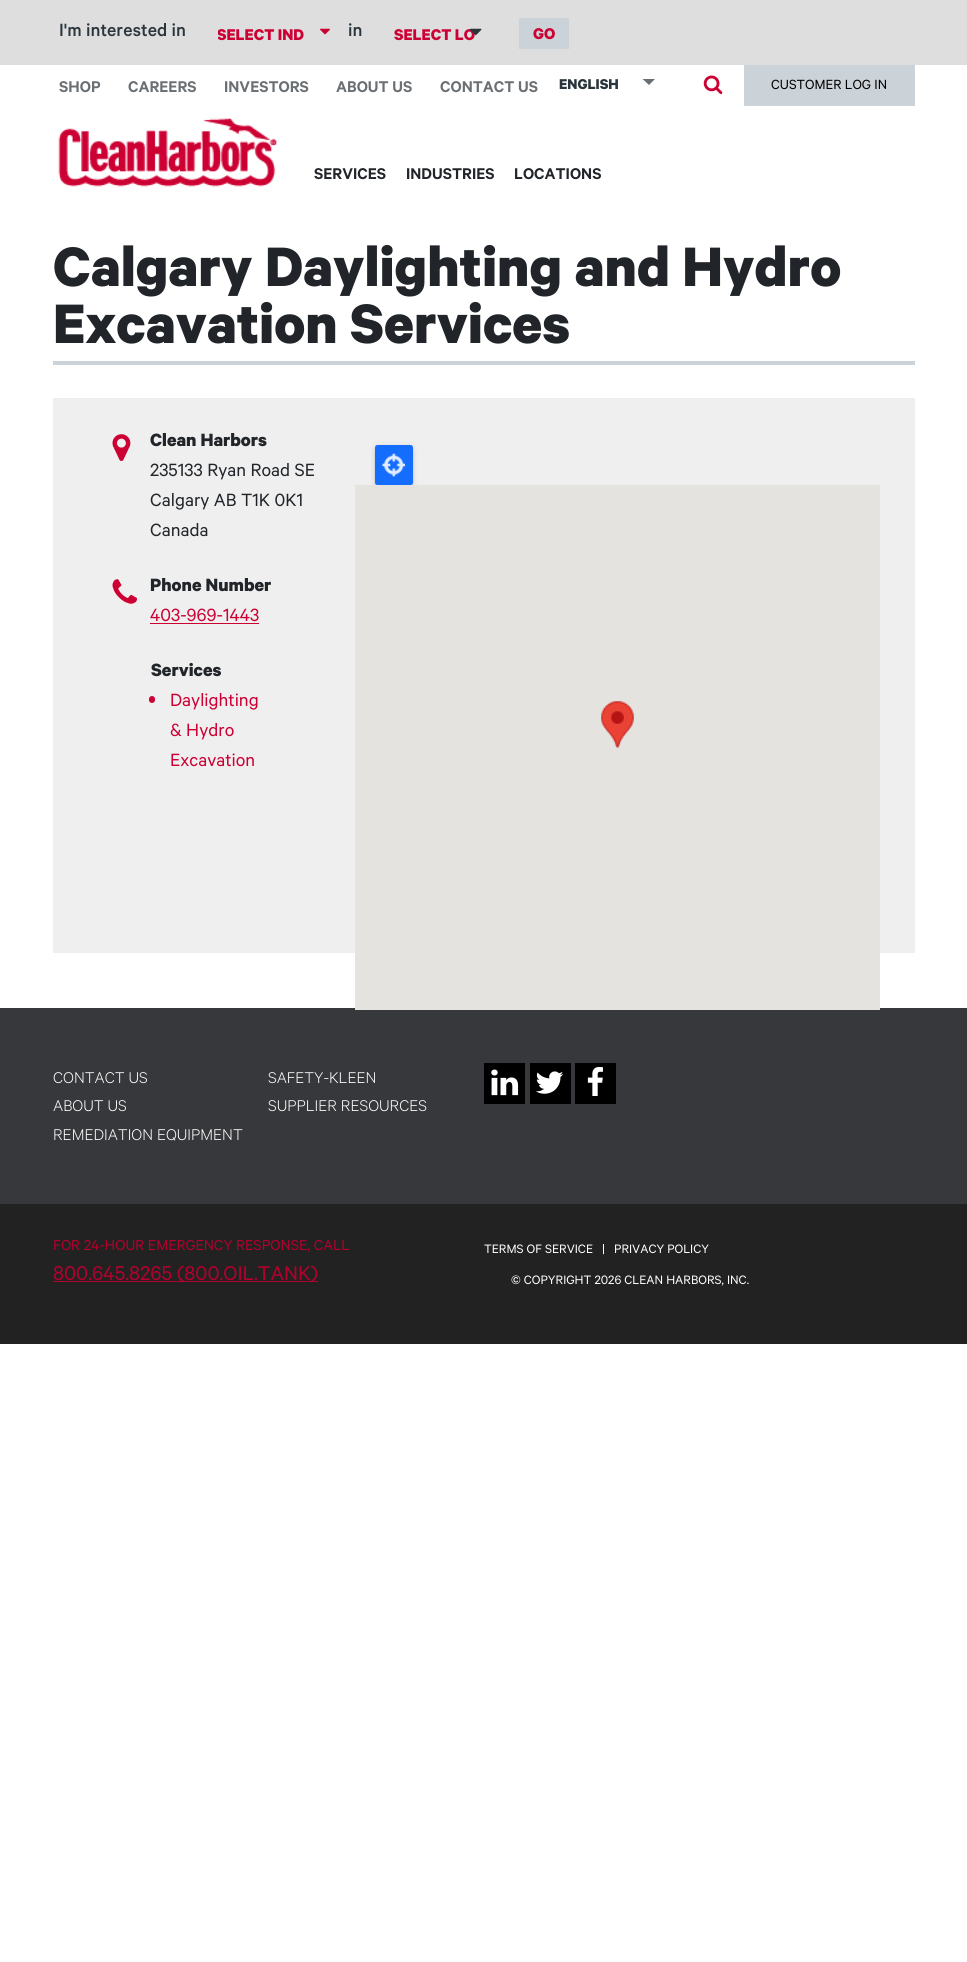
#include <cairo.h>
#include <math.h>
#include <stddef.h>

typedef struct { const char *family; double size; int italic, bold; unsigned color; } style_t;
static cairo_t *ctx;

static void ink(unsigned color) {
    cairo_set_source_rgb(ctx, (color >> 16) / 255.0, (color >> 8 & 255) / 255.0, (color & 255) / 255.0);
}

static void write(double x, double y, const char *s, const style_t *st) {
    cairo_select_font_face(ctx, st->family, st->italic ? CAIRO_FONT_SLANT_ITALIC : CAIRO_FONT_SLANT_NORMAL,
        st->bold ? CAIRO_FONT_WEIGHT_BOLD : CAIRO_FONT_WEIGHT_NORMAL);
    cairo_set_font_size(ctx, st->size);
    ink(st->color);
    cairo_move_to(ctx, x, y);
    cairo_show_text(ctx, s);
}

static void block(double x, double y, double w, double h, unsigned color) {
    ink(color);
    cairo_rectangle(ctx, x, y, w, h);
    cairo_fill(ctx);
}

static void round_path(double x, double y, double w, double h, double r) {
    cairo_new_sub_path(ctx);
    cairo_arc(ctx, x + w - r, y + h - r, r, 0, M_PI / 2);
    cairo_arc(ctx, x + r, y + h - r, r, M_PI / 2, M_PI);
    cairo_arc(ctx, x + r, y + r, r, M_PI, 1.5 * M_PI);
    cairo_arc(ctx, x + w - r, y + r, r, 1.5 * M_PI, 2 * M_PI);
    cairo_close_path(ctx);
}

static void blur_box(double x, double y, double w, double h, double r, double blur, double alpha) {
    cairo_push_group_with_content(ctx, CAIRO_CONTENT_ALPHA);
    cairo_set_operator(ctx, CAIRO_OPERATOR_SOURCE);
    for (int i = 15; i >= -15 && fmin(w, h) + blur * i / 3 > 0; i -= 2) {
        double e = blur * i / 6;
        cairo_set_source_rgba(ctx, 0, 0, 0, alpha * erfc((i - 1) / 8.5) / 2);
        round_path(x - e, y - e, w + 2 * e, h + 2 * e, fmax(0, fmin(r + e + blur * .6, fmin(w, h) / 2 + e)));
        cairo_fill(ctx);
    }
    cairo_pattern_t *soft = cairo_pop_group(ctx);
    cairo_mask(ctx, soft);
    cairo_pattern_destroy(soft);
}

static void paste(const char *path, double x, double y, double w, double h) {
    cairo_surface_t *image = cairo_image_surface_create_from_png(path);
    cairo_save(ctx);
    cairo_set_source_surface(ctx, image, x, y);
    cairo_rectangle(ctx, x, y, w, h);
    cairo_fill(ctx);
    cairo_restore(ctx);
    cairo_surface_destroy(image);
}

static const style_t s1 = {"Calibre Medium", 20, 0, 0, 0x2b363c};
static const style_t s2 = {"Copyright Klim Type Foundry", 17.5, 0, 1, 0xcc0033};
static const style_t s3 = {"Calibre SemiBold", 17.5, 0, 0, 0x6a6f73};
static const style_t s4 = {"Copyright Klim Type Foundry", 16, 0, 1, 0x2b363c};
static const style_t s5 = {"Copyright Klim Type Foundry", 15, 0, 0, 0x000000};
static const style_t s6 = {"Calibre SemiBold", 17.5, 0, 0, 0x212529};
static const style_t s7 = {"Copyright Klim Type Foundry", 62.5, 0, 1, 0x212529};
static const style_t s8 = {"Copyright Klim Type Foundry", 20, 0, 1, 0x212529};
static const style_t s9 = {"Copyright Klim Type Foundry", 20, 0, 0, 0x212529};
static const style_t s10 = {"Copyright Klim Type Foundry", 20, 0, 0, 0xcc0033};
static const style_t s11 = {"Calibre Light", 17.5, 0, 0, 0xffffff};
static const style_t s12 = {"Copyright Klim Type Foundry", 16.25, 0, 0, 0xb3002d};
static const style_t s13 = {"Copyright Klim Type Foundry", 22.5, 0, 0, 0xb3002d};
static const style_t s14 = {"Copyright Klim Type Foundry", 13.75, 0, 0, 0xffffff};

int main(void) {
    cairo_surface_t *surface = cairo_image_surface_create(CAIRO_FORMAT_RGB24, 967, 1962);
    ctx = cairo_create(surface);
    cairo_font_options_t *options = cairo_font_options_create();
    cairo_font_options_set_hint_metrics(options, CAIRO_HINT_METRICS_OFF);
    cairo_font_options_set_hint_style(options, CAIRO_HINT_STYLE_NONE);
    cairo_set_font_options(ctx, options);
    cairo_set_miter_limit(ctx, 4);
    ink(0xffffff);
    cairo_paint(ctx);
    block(0, 0, 967, 65, 0xdedede);
    write(59, 36, "I'm interested in", &s1);
    cairo_save(ctx);
    cairo_rectangle(ctx, 218, 13, 87, 43);
    cairo_clip(ctx);
    write(217, 40, "SELECT IND", &s2);
    cairo_restore(ctx);
    paste("pic1.png", 320, 28, 10, 7);
    write(348, 36, "in", &s1);
    write(394, 40, "SELECT LO", &s2);
    paste("pic2.png", 470, 28, 12, 8);
    block(519, 18, 50, 31, 0xccd3d8);
    write(533, 39, "GO", &s2);
    write(59, 92, "SHOP", &s3);
    write(128, 92, "CAREERS", &s3);
    write(224, 92, "INVESTORS", &s3);
    write(336, 92, "ABOUT US", &s3);
    write(440, 92, "CONTACT US", &s3);
    write(559, 89, "ENGLISH", &s4);
    ink(0x6a6f73);
    cairo_new_path(ctx);
    cairo_move_to(ctx, 642.5, 79);
    cairo_line_to(ctx, 655, 79);
    cairo_line_to(ctx, 649, 85);
    cairo_close_path(ctx);
    cairo_fill(ctx);
    paste("pic3.png", 703, 75, 20, 20);
    block(744, 65, 171, 41, 0xccd3d8);
    write(771, 89, "CUSTOMER LOG IN", &s5);
    paste("pic4.png", 58, 118, 219, 69);
    write(314, 179, "SERVICES", &s6);
    write(406, 179, "INDUSTRIES", &s6);
    write(514, 179, "LOCATIONS", &s6);
    write(53, 286, "Calgary Daylighting and Hydro", &s7);
    write(53, 343, "Excavation Services", &s7);
    block(53, 361, 862, 4, 0xccd3d8);
    block(53, 398, 862, 555, 0xefefef);
    paste("pic5.png", 112, 434, 19, 27);
    write(150, 446, "Clean Harbors", &s8);
    write(150, 476, "235133 Ryan Road SE", &s9);
    write(150, 506, "Calgary AB T1K 0K1", &s9);
    write(150, 536, "Canada", &s9);
    paste("pic6.png", 112, 579, 25, 25);
    write(150, 591, "Phone Number", &s8);
    write(150, 621, "403-969-1443", &s10);
    block(150, 623, 109, 1, 0xcc0033);
    write(151, 676, "Services", &s8);
    ink(0xcc0033);
    round_path(149, 696, 6, 7, 3);
    cairo_fill(ctx);
    write(170, 706, "Daylighting", &s10);
    write(170, 736, "& Hydro", &s10);
    write(170, 766, "Excavation", &s10);
    ink(0x000000);
    blur_box(375, 446, 38, 40, 2.5, 3, 0.12);
    blur_box(375, 448, 38, 40, 2.5, 1, 0.14);
    ink(0x156dfe);
    round_path(375, 445, 38, 40, 2.5);
    cairo_fill(ctx);
    paste("pic7.png", 382, 453, 23, 24);
    block(0, 1008, 967, 196, 0x37383b);
    block(355, 485, 525, 525, 0xe5e3df);
    paste("pic8.png", 601, 701, 33, 47);
    write(53, 1083, "CONTACT US", &s11);
    write(268, 1083, "SAFETY-KLEEN", &s11);
    write(53, 1111, "ABOUT US", &s11);
    write(268, 1111, "SUPPLIER RESOURCES", &s11);
    write(53, 1140, "REMEDIATION EQUIPMENT", &s11);
    block(484, 1063, 41, 41, 0x000000);
    paste("pic9.png", 491, 1069, 28, 27);
    block(530, 1063, 41, 41, 0x000000);
    paste("pic10.png", 536, 1071, 28, 23);
    block(575, 1063, 41, 41, 0x000000);
    paste("pic11.png", 587, 1067, 16, 29);
    block(0, 1204, 967, 140, 0x222222);
    write(53, 1250, "FOR 24-HOUR EMERGENCY RESPONSE, CALL", &s12);
    block(53, 1281, 265, 1, 0xb3002d);
    write(53, 1280, "800.645.8265 (800.OIL.TANK)", &s13);
    write(484, 1253, "TERMS OF SERVICE", &s14);
    write(602, 1253, "|", &s14);
    write(614, 1253, "PRIVACY POLICY", &s14);
    write(511, 1284, "© COPYRIGHT 2026 CLEAN HARBORS, INC.", &s14);
    cairo_surface_write_to_png(surface, "screenshot.png");
    cairo_font_options_destroy(options);
    cairo_destroy(ctx);
    cairo_surface_destroy(surface);
    return 0;
}
